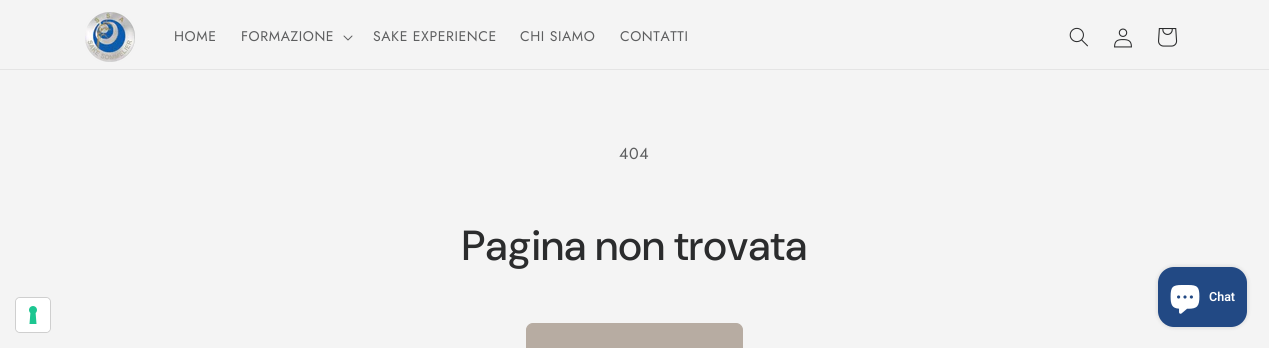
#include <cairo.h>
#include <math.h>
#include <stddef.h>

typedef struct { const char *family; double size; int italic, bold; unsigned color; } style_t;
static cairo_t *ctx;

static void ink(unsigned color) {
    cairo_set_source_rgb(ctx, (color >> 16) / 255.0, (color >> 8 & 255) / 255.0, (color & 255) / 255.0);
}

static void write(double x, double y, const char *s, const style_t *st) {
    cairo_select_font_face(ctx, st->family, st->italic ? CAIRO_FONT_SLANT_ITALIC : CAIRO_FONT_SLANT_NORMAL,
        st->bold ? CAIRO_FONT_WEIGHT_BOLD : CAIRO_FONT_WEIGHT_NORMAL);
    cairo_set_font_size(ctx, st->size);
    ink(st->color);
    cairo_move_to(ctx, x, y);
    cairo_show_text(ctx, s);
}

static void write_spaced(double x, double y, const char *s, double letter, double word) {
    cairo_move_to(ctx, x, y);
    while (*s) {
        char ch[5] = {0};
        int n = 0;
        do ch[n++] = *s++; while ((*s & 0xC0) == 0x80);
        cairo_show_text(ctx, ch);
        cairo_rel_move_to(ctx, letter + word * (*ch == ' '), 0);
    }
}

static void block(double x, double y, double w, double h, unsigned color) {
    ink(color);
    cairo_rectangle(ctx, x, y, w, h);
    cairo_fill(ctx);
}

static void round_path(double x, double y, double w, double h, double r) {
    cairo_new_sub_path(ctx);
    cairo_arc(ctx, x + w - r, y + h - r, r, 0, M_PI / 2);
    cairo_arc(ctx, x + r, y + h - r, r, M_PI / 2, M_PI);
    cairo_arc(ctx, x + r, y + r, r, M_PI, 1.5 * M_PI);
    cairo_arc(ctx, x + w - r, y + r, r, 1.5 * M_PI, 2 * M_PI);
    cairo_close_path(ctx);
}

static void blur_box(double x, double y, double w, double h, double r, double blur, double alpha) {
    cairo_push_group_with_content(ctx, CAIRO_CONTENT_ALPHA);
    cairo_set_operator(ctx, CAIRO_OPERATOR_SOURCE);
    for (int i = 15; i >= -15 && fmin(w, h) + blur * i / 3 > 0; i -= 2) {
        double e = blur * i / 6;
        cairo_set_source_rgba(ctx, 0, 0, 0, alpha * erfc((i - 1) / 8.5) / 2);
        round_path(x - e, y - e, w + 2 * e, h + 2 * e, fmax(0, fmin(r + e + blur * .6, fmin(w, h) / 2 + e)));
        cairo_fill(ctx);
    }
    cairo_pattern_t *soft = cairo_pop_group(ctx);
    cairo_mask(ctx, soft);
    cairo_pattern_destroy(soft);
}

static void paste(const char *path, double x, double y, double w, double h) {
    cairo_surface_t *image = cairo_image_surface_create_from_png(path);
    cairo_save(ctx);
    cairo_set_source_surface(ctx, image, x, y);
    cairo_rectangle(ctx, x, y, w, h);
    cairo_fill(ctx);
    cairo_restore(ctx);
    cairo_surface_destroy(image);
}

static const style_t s1 = {"Roboto SemiBold", 12.5, 0, 0, 0xffffff};

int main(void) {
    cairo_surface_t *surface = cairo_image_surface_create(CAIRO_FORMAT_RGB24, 1269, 348);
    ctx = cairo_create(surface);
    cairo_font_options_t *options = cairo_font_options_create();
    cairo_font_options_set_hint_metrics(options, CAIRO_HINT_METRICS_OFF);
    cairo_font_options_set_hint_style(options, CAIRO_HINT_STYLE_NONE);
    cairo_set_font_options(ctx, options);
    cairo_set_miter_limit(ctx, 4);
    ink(0xf4f4f4);
    cairo_paint(ctx);
    block(0, 69, 1269, 1, 0xe4e4e4);
    paste("pic1.png", 85, 12, 50, 50);
    cairo_select_font_face(ctx, "Jost", CAIRO_FONT_SLANT_NORMAL, CAIRO_FONT_WEIGHT_NORMAL);
    cairo_set_font_size(ctx, 14);
    ink(0x5d5e5f);
    write_spaced(174, 41, "HOME", 0.6, 0);
    write_spaced(241, 41, "FORMAZIONE", 0.6, 0);
    paste("pic2.png", 343, 35, 10, 6);
    write_spaced(373, 41, "SAKE EXPERIENCE", 0.6, 0);
    write_spaced(520, 41, "CHI SIAMO", 0.6, 0);
    write_spaced(620, 41, "CONTATTI", 0.6, 0);
    paste("pic3.png", 1069, 27, 19, 20);
    paste("pic4.png", 1114, 28, 18, 20);
    paste("pic5.png", 1158, 28, 20, 19);
    cairo_set_font_size(ctx, 16);
    write_spaced(619, 159, "404", 0.6, 0);
    cairo_select_font_face(ctx, "DM Sans Medium", CAIRO_FONT_SLANT_NORMAL, CAIRO_FONT_WEIGHT_NORMAL);
    cairo_set_font_size(ctx, 42);
    ink(0x2b2c2d);
    write_spaced(462, 260, "Pagina non trovata", 0.6, 0);
    ink(0xb7aca2);
    round_path(526.5, 323.5, 216, 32, 6.5);
    cairo_fill_preserve(ctx);
    cairo_set_line_width(ctx, 1);
    cairo_stroke(ctx);
    round_path(15.5, 297.5, 35, 35, 4.5);
    ink(0xcfcfcf);
    cairo_stroke(ctx);
    ink(0xffffff);
    round_path(16, 298, 34, 34, 4);
    cairo_fill(ctx);
    paste("pic6.png", 29, 306, 8, 18);
    ink(0x000000);
    blur_box(1158, 267, 89, 60, 16, 2.5, 0.15);
    ink(0x224984);
    round_path(1158, 267, 89, 60, 16);
    cairo_fill(ctx);
    paste("pic7.png", 1170, 285, 30, 29);
    write(1209, 301, "Chat", &s1);
    cairo_surface_write_to_png(surface, "screenshot.png");
    cairo_font_options_destroy(options);
    cairo_destroy(ctx);
    cairo_surface_destroy(surface);
    return 0;
}
